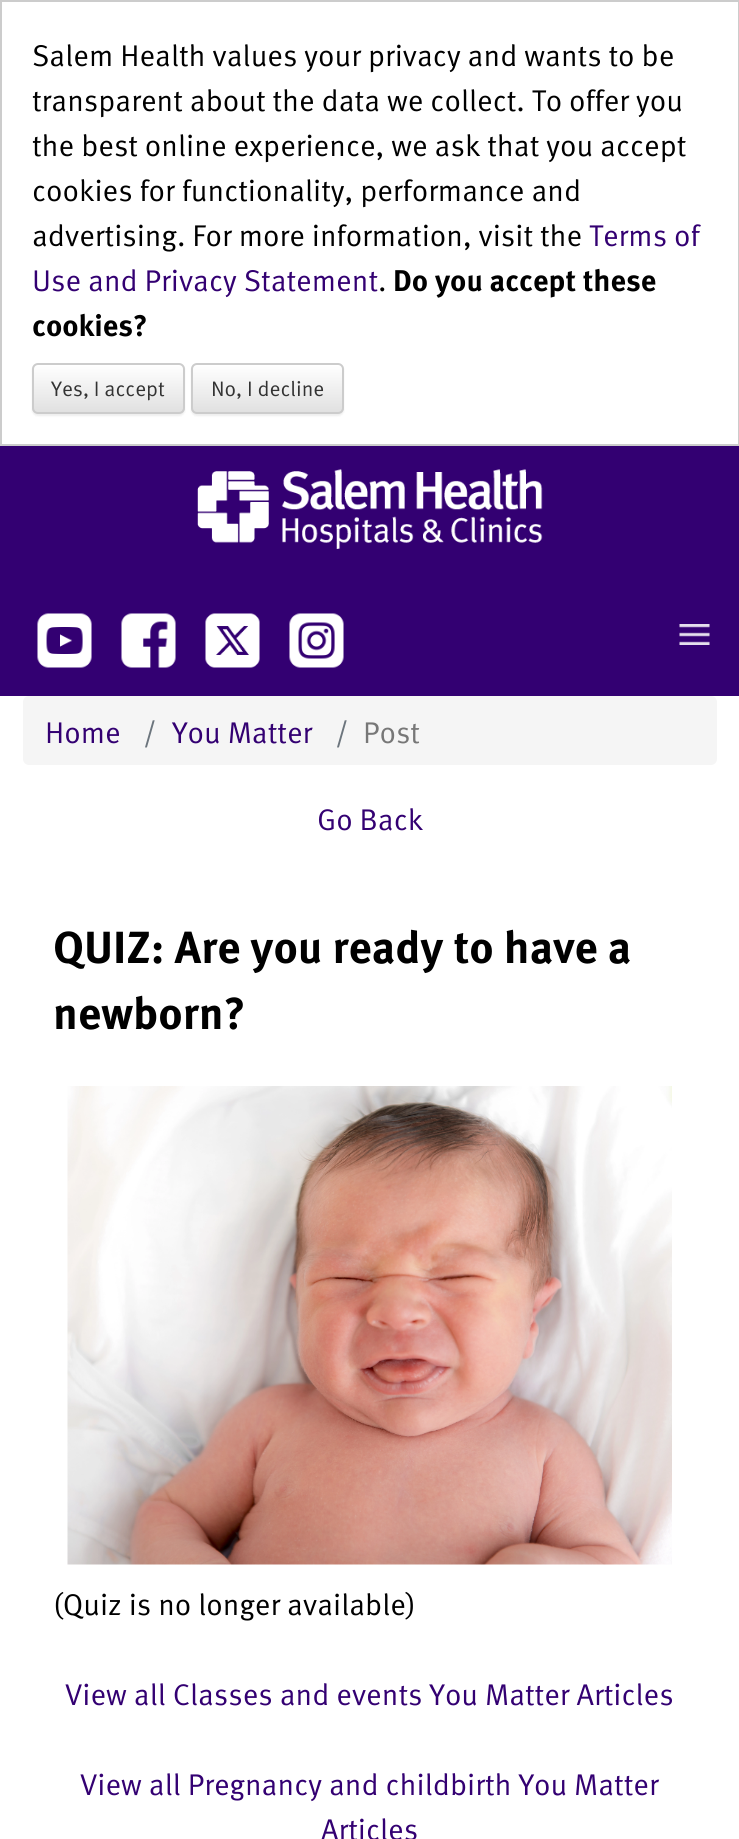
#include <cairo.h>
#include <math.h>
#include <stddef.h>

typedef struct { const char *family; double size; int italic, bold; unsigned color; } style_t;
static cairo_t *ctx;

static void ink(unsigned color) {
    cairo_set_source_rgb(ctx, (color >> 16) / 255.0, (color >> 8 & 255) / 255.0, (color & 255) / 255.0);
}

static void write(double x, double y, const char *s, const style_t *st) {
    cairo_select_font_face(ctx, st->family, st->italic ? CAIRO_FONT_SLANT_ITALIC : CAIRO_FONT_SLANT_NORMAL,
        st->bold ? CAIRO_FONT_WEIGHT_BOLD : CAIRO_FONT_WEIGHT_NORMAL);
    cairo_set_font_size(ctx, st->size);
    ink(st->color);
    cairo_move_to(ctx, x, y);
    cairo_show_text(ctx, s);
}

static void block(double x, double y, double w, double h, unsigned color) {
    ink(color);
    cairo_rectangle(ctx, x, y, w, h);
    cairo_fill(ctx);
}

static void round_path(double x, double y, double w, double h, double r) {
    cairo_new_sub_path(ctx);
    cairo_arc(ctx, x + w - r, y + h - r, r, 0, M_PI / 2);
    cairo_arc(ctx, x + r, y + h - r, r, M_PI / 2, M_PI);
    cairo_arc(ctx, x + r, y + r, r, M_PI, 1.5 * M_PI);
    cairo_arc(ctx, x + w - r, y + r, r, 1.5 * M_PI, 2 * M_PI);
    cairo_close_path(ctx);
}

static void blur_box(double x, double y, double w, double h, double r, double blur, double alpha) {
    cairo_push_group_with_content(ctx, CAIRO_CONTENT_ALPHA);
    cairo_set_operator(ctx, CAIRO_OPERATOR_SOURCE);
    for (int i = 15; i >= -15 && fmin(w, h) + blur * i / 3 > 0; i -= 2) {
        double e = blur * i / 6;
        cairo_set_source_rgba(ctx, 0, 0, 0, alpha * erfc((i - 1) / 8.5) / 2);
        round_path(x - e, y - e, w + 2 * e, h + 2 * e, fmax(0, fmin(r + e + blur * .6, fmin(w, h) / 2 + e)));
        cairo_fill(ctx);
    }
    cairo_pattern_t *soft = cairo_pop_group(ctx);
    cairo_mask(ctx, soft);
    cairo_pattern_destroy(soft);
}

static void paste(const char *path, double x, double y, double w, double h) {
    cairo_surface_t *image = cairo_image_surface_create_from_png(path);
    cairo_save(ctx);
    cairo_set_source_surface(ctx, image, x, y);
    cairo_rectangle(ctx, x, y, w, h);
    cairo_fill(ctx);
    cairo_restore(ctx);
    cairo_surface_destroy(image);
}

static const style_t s1 = {"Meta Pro", 30, 0, 0, 0x000000};
static const style_t s2 = {"Meta Pro", 30, 0, 0, 0x330072};
static const style_t s3 = {"Meta Pro", 30, 0, 1, 0x000000};
static const style_t s4 = {"Meta Pro", 21, 0, 0, 0x333333};
static const style_t s5 = {"Meta Pro", 30, 0, 0, 0x6c757d};
static const style_t s6 = {"Meta Pro", 30, 0, 0, 0x777777};
static const style_t s7 = {"Meta Pro", 45, 0, 1, 0x000000};

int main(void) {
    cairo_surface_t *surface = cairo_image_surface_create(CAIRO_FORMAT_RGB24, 739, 1839);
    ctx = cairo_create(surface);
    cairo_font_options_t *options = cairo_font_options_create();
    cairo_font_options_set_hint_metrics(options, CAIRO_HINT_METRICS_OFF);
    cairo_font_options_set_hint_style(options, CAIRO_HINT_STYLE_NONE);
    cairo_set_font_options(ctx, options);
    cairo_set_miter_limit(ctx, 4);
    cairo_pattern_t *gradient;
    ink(0xffffff);
    cairo_paint(ctx);
    cairo_rectangle(ctx, 1, 1, 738, 444);
    ink(0xcccccc);
    cairo_stroke(ctx);
    write(32, 66, "Salem Health values your privacy and wants to be", &s1);
    write(32, 111, "transparent about the data we collect. To offer you", &s1);
    write(32, 156, "the best online experience, we ask that you accept", &s1);
    write(32, 201, "cookies for functionality, performance and", &s1);
    write(32, 246, "advertising. For more information, visit the", &s1);
    write(589, 246, "Terms of", &s2);
    write(32, 291, "Use and Privacy Statement", &s2);
    write(378, 291, ".", &s1);
    write(393, 291, "Do you accept these", &s3);
    write(32, 336, "cookies?", &s3);
    ink(0x000000);
    blur_box(32, 365, 153, 51, 6, 1, 0.07);
    cairo_save(ctx);
    round_path(32, 363, 153, 51, 6);
    cairo_clip(ctx);
    gradient = cairo_pattern_create_linear(108, 365, 108, 413);
    cairo_pattern_add_color_stop_rgba(gradient, 0, 1, 1, 1, 1);
    cairo_pattern_add_color_stop_rgba(gradient, 1, 0.878, 0.878, 0.878, 1);
    cairo_set_source(ctx, gradient);
    cairo_pattern_destroy(gradient);
    cairo_rectangle(ctx, 32, 365, 153, 48);
    cairo_fill(ctx);
    cairo_restore(ctx);
    round_path(33, 364, 151, 49, 5);
    ink(0xcccccc);
    cairo_stroke(ctx);
    write(51, 396, "Yes, I accept", &s4);
    ink(0x000000);
    blur_box(191, 365, 153, 51, 6, 1, 0.07);
    cairo_save(ctx);
    round_path(191, 363, 153, 51, 6);
    cairo_clip(ctx);
    gradient = cairo_pattern_create_linear(267, 365, 267, 413);
    cairo_pattern_add_color_stop_rgba(gradient, 0, 1, 1, 1, 1);
    cairo_pattern_add_color_stop_rgba(gradient, 1, 0.878, 0.878, 0.878, 1);
    cairo_set_source(ctx, gradient);
    cairo_pattern_destroy(gradient);
    cairo_rectangle(ctx, 191, 365, 153, 48);
    cairo_fill(ctx);
    cairo_restore(ctx);
    round_path(192, 364, 151, 49, 5);
    ink(0xcccccc);
    cairo_stroke(ctx);
    write(211, 396, "No, I decline", &s4);
    block(0, 446, 739, 250, 0x330072);
    paste("pic1.png", 197, 469, 346, 80);
    paste("pic2.png", 37, 613, 55, 55);
    paste("pic3.png", 121, 613, 55, 55);
    paste("pic4.png", 205, 613, 55, 55);
    paste("pic5.png", 289, 613, 55, 55);
    paste("pic6.png", 679, 624, 31, 21);
    ink(0xf5f5f5);
    round_path(23, 696, 694, 69, 6);
    cairo_fill(ctx);
    write(45, 743, "Home", &s2);
    write(143, 743, "/", &s5);
    write(172, 743, "You Matter", &s2);
    write(335, 743, "/", &s5);
    write(363, 743, "Post", &s6);
    write(317, 830, "Go Back", &s2);
    write(53, 963, "QUIZ: Are you ready to have a", &s7);
    write(53, 1029, "newborn?", &s7);
    paste("pic7.png", 67, 1086, 605, 479);
    write(53, 1615, "(Quiz is no longer available)", &s1);
    write(65, 1705, "View all Classes and events You Matter Articles", &s2);
    write(80, 1795, "View all Pregnancy and childbirth You Matter", &s2);
    write(321, 1840, "Articles", &s2);
    cairo_surface_write_to_png(surface, "screenshot.png");
    cairo_font_options_destroy(options);
    cairo_destroy(ctx);
    cairo_surface_destroy(surface);
    return 0;
}
